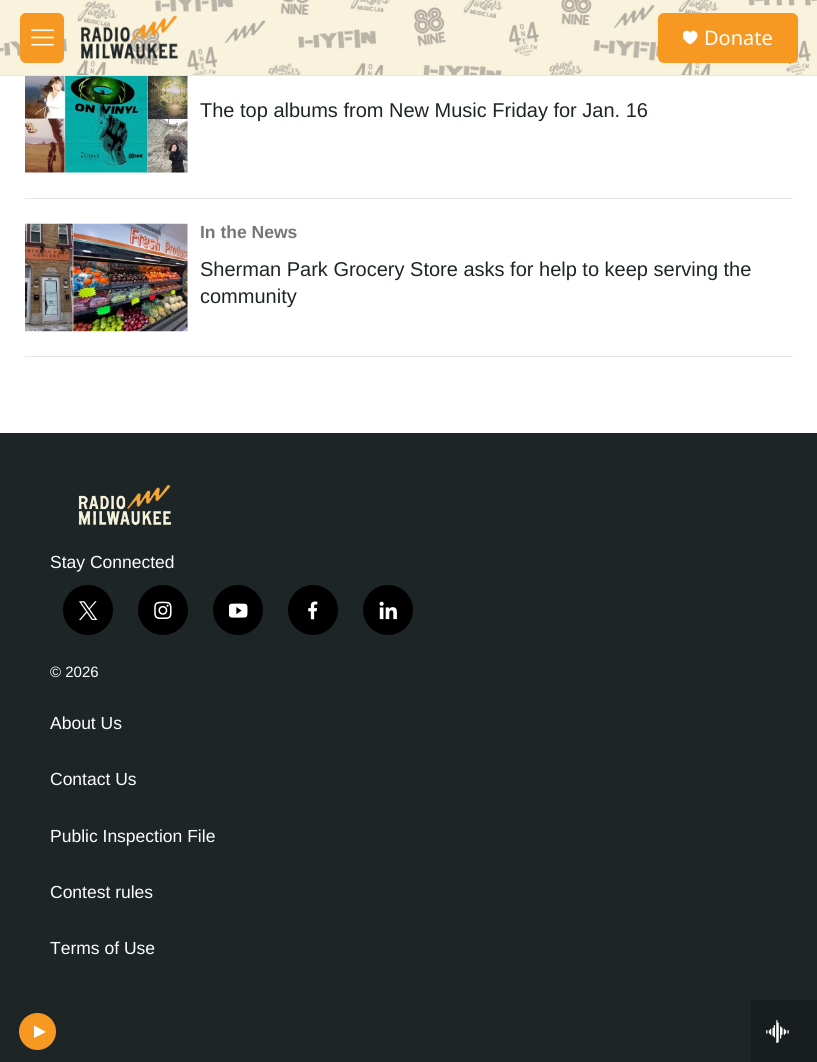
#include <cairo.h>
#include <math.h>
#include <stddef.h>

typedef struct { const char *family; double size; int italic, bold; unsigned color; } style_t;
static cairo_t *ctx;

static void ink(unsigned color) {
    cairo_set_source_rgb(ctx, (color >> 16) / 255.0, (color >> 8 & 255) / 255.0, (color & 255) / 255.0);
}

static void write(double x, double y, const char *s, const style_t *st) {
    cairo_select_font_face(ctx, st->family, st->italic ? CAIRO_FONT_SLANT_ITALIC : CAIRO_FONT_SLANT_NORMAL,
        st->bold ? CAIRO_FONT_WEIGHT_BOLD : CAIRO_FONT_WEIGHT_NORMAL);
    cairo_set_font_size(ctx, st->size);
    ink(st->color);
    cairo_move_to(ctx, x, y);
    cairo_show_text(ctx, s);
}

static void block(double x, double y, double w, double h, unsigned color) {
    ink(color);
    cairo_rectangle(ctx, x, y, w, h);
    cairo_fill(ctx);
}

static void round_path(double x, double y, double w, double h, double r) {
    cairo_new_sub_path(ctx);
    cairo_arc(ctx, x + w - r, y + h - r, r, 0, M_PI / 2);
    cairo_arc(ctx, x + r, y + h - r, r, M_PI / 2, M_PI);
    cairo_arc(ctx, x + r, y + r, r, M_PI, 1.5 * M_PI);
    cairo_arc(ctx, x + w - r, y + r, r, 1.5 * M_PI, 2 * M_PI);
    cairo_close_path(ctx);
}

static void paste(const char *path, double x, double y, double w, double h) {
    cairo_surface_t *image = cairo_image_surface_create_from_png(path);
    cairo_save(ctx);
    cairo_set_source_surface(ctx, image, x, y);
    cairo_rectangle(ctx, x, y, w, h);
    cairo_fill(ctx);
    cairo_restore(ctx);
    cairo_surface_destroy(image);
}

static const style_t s1 = {"Noto Sans", 20, 0, 0, 0xffffff};
static const style_t s2 = {"Liberation Sans", 20, 0, 0, 0x1e2527};
static const style_t s3 = {"Liberation Sans", 17.5, 0, 1, 0x767676};
static const style_t s4 = {"Liberation Sans", 17.5, 0, 0, 0xffffff};
static const style_t s5 = {"Liberation Sans", 15, 0, 0, 0xffffff};

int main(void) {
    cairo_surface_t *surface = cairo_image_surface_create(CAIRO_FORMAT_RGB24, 817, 1062);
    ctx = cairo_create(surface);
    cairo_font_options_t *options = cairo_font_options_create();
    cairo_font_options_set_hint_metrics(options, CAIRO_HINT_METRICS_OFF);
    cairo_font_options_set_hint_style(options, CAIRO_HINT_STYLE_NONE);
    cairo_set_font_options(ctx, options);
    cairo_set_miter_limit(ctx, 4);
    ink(0xffffff);
    cairo_paint(ctx);
    block(0, 75, 817, 1, 0xe6e6e6);
    paste("pic1.png", 0, 0, 817, 75);
    ink(0xf79822);
    round_path(20, 13, 44, 50, 6);
    cairo_fill(ctx);
    paste("pic2.png", 31, 29, 23, 17);
    paste("pic3.png", 81, 15, 97, 45);
    round_path(658, 13, 140, 50, 6);
    cairo_fill(ctx);
    cairo_save(ctx);
    cairo_rectangle(ctx, 683, 30, 15, 15);
    cairo_clip(ctx);
    ink(0xffffff);
    cairo_new_path(ctx);
    cairo_move_to(ctx, 690, 33);
    cairo_curve_to(ctx, 687.5, 26.5, 674.5, 35, 690, 44.5);
    cairo_curve_to(ctx, 705.5, 35, 692.5, 26.5, 690, 33);
    cairo_close_path(ctx);
    cairo_fill(ctx);
    cairo_restore(ctx);
    write(704, 45, "Donate", &s1);
    block(0, 1000, 751, 62, 0x1e2527);
    ink(0xf79822);
    cairo_new_path(ctx);
    cairo_arc(ctx, 37.5, 1031.5, 18.5, 0, 2 * M_PI);
    cairo_fill(ctx);
    ink(0xffffff);
    cairo_new_path(ctx);
    cairo_move_to(ctx, 34, 1025.5);
    cairo_line_to(ctx, 46, 1032);
    cairo_line_to(ctx, 34, 1038);
    cairo_close_path(ctx);
    cairo_fill(ctx);
    block(751, 1000, 66, 62, 0x181e1f);
    paste("pic4.png", 766, 1020, 23, 23);
    block(25, 198, 768, 1, 0xe6e6e6);
    paste("pic5.png", 25, 76, 163, 97);
    write(200, 117, "The top albums from New Music Friday for Jan. 16", &s2);
    block(25, 356, 768, 1, 0xe6e6e6);
    paste("pic6.png", 25, 223, 163, 109);
    write(200, 238, "In the News", &s3);
    write(200, 276, "Sherman Park Grocery Store asks for help to keep serving the", &s2);
    write(200, 303, "community", &s2);
    block(0, 433, 817, 567, 0x1e2527);
    paste("pic7.png", 78, 485, 94, 40);
    write(50, 568, "Stay Connected", &s4);
    ink(0x000000);
    cairo_new_path(ctx);
    cairo_arc(ctx, 88, 610, 25, 0, 2 * M_PI);
    cairo_fill(ctx);
    paste("pic8.png", 79, 601, 19, 19);
    cairo_arc(ctx, 163, 610, 25, 0, 2 * M_PI);
    cairo_fill(ctx);
    paste("pic9.png", 154, 601, 18, 18);
    cairo_arc(ctx, 238, 610, 25, 0, 2 * M_PI);
    cairo_fill(ctx);
    paste("pic10.png", 229, 603, 19, 15);
    cairo_arc(ctx, 313, 610, 25, 0, 2 * M_PI);
    cairo_fill(ctx);
    paste("pic11.png", 308, 601, 10, 19);
    cairo_arc(ctx, 388, 610, 25, 0, 2 * M_PI);
    cairo_fill(ctx);
    paste("pic12.png", 379, 601, 18, 19);
    write(50, 677, "© 2026", &s5);
    write(50, 729, "About Us", &s4);
    write(50, 785, "Contact Us", &s4);
    write(50, 842, "Public Inspection File", &s4);
    write(50, 898, "Contest rules", &s4);
    write(50, 954, "Terms of Use", &s4);
    cairo_surface_write_to_png(surface, "screenshot.png");
    cairo_font_options_destroy(options);
    cairo_destroy(ctx);
    cairo_surface_destroy(surface);
    return 0;
}
